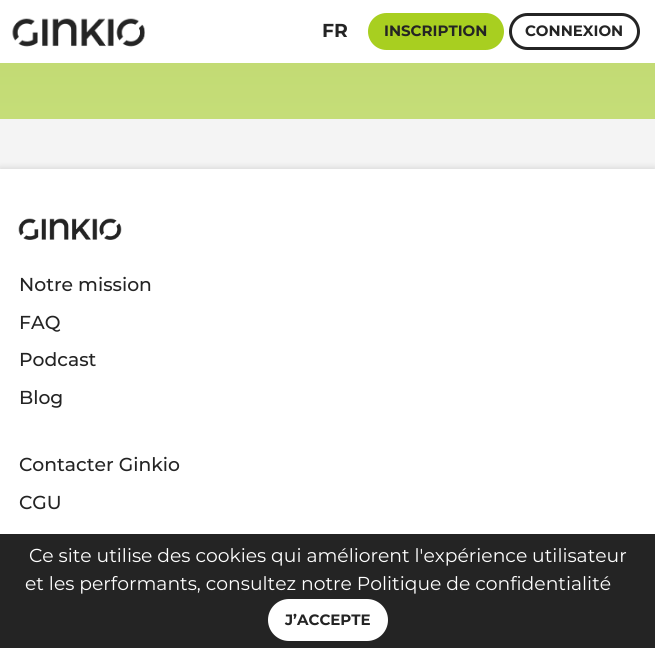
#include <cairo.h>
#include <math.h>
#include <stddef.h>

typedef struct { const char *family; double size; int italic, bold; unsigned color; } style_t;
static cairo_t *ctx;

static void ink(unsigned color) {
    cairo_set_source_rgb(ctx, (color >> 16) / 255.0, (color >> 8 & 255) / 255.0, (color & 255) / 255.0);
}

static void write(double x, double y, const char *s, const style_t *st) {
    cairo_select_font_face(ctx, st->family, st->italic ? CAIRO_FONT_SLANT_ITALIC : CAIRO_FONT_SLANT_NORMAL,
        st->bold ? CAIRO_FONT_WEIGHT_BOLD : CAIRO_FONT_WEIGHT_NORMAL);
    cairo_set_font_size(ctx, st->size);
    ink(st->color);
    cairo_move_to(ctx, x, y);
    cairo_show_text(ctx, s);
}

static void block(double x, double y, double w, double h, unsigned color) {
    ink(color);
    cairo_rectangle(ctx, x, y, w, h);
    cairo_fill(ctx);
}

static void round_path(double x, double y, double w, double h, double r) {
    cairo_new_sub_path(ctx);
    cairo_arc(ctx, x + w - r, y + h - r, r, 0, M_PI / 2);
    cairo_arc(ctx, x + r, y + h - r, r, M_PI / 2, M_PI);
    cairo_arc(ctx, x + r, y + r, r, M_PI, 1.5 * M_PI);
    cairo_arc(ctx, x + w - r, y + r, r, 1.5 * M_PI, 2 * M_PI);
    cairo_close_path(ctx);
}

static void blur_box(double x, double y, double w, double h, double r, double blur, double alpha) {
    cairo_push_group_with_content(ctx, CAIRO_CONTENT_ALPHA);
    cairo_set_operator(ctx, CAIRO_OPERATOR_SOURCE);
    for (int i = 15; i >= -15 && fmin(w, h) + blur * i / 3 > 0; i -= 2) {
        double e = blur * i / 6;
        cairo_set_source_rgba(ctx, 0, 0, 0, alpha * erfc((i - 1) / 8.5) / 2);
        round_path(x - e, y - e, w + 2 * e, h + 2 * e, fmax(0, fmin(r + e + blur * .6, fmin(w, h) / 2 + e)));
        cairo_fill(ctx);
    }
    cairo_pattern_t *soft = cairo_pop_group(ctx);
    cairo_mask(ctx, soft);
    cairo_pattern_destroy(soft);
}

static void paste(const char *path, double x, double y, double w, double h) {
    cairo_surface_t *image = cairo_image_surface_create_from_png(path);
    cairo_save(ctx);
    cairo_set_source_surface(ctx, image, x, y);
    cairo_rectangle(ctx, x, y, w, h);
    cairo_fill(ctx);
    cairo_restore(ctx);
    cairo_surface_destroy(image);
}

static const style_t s1 = {"Montserrat", 18.75, 0, 1, 0x242424};
static const style_t s2 = {"Montserrat", 15, 0, 1, 0x242424};
static const style_t s3 = {"Montserrat Medium", 18.75, 0, 0, 0x242424};
static const style_t s4 = {"Montserrat", 18.75, 0, 0, 0xffffff};

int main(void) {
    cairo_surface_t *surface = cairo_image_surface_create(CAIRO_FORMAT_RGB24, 655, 648);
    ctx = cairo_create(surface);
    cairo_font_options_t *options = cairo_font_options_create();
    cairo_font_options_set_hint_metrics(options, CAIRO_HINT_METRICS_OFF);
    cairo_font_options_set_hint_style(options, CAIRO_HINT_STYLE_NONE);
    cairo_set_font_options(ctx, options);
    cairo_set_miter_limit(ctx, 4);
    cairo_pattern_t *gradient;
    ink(0xf4f4f4);
    cairo_paint(ctx);
    block(0, 0, 655, 63, 0xffffff);
    paste("pic1.png", 12, 18, 133, 29);
    write(322, 37, "FR", &s1);
    ink(0xa8cf20);
    round_path(369.5, 14.5, 133, 34, 17);
    cairo_fill_preserve(ctx);
    cairo_set_line_width(ctx, 3);
    cairo_stroke(ctx);
    write(384, 36, "INSCRIPTION", &s2);
    round_path(510.5, 14.5, 128, 34, 17);
    cairo_stroke(ctx);
    write(525, 36, "CONNEXION", &s2);
    gradient = cairo_pattern_create_linear(328, -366, 328, 119);
    cairo_pattern_add_color_stop_rgba(gradient, 0, 0.682, 0.796, 0.329, 1);
    cairo_pattern_add_color_stop_rgba(gradient, 1, 0.773, 0.867, 0.471, 1);
    cairo_set_source(ctx, gradient);
    cairo_pattern_destroy(gradient);
    cairo_rectangle(ctx, 0, 63, 655, 56);
    cairo_fill(ctx);
    ink(0x000000);
    blur_box(0, 169, 655, 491, 0, 4, 0.16);
    block(0, 169, 655, 365, 0xffffff);
    paste("pic2.png", 18, 218, 104, 22);
    write(19, 291, "Notre mission", &s3);
    write(19, 329, "FAQ", &s3);
    write(19, 366, "Podcast", &s3);
    write(19, 404, "Blog", &s3);
    write(19, 471, "Contacter Ginkio", &s3);
    write(19, 509, "CGU", &s3);
    block(0, 534, 655, 114, 0x242424);
    write(29, 562, "Ce site utilise des cookies qui améliorent l'expérience utilisateur", &s4);
    write(25, 590, "et les performants, consultez notre Politique de confidentialité", &s4);
    round_path(269.5, 600.5, 117, 39, 19.5);
    cairo_fill_preserve(ctx);
    cairo_stroke(ctx);
    write(285, 625, "J’ACCEPTE", &s2);
    cairo_surface_write_to_png(surface, "screenshot.png");
    cairo_font_options_destroy(options);
    cairo_destroy(ctx);
    cairo_surface_destroy(surface);
    return 0;
}
